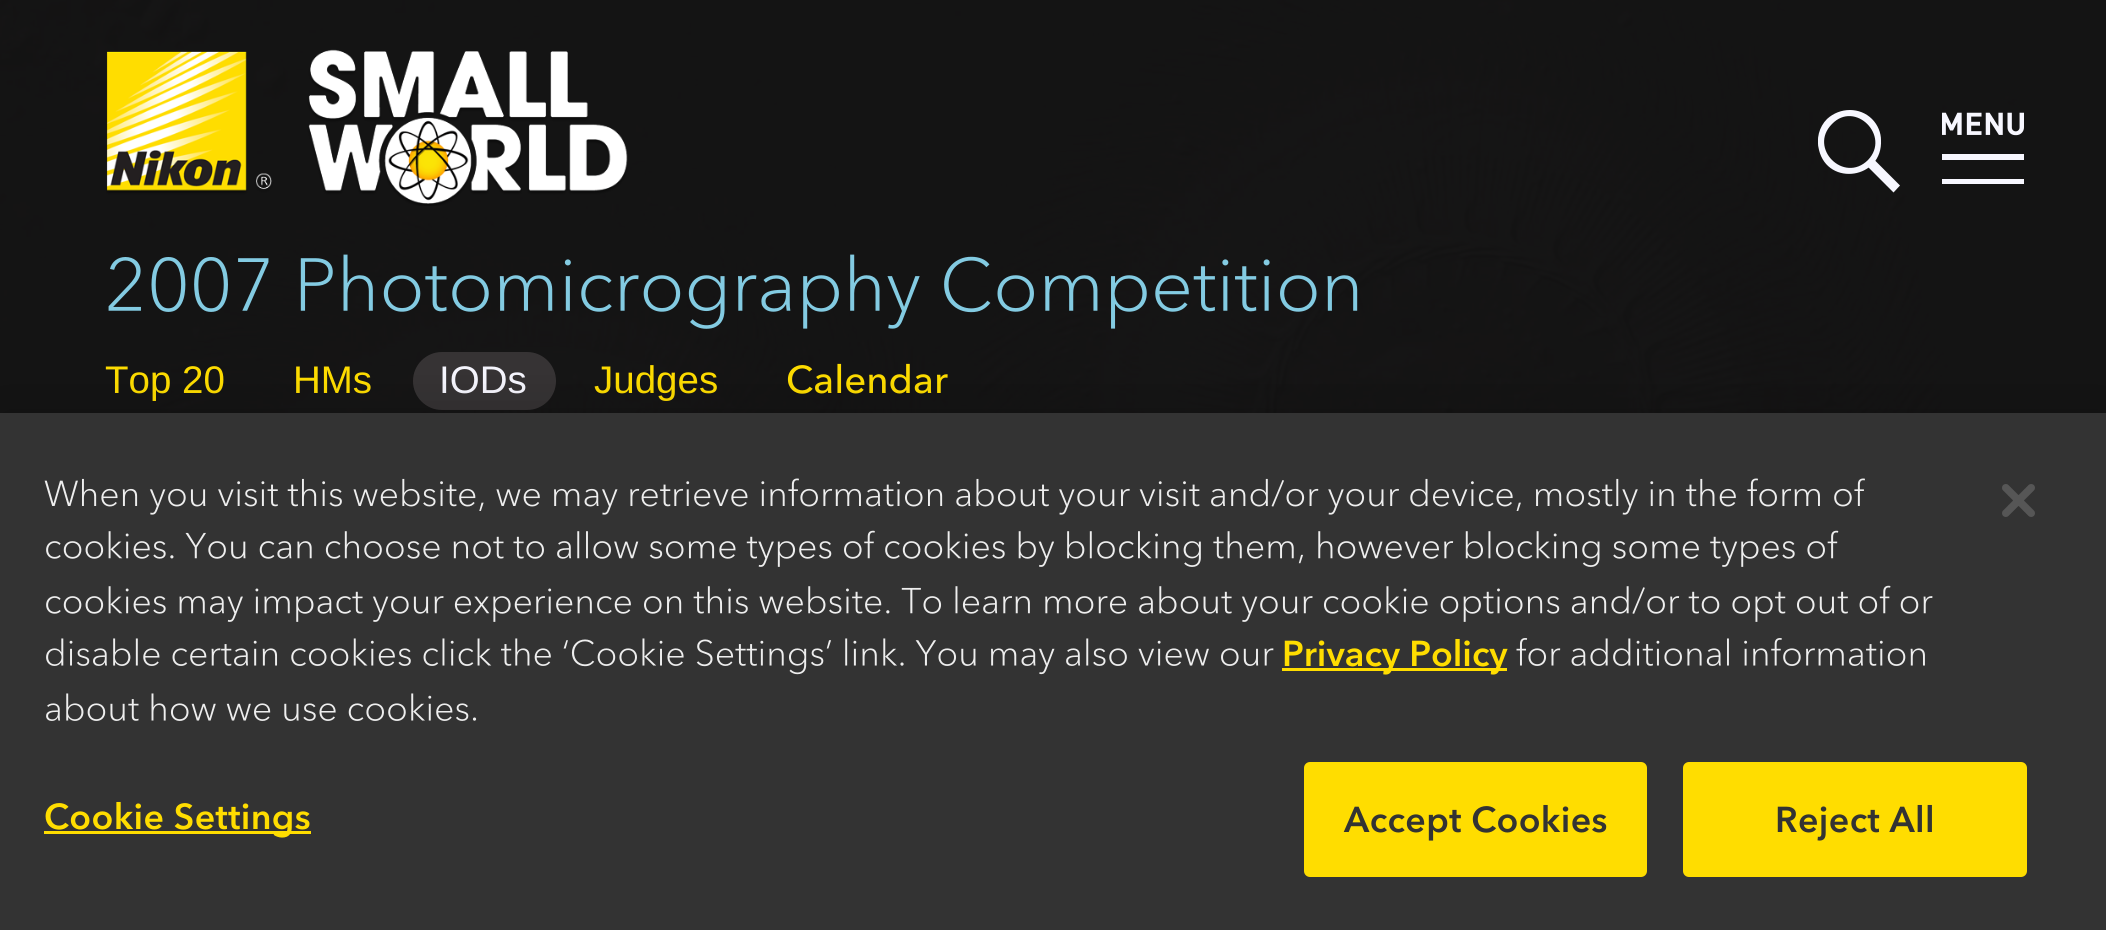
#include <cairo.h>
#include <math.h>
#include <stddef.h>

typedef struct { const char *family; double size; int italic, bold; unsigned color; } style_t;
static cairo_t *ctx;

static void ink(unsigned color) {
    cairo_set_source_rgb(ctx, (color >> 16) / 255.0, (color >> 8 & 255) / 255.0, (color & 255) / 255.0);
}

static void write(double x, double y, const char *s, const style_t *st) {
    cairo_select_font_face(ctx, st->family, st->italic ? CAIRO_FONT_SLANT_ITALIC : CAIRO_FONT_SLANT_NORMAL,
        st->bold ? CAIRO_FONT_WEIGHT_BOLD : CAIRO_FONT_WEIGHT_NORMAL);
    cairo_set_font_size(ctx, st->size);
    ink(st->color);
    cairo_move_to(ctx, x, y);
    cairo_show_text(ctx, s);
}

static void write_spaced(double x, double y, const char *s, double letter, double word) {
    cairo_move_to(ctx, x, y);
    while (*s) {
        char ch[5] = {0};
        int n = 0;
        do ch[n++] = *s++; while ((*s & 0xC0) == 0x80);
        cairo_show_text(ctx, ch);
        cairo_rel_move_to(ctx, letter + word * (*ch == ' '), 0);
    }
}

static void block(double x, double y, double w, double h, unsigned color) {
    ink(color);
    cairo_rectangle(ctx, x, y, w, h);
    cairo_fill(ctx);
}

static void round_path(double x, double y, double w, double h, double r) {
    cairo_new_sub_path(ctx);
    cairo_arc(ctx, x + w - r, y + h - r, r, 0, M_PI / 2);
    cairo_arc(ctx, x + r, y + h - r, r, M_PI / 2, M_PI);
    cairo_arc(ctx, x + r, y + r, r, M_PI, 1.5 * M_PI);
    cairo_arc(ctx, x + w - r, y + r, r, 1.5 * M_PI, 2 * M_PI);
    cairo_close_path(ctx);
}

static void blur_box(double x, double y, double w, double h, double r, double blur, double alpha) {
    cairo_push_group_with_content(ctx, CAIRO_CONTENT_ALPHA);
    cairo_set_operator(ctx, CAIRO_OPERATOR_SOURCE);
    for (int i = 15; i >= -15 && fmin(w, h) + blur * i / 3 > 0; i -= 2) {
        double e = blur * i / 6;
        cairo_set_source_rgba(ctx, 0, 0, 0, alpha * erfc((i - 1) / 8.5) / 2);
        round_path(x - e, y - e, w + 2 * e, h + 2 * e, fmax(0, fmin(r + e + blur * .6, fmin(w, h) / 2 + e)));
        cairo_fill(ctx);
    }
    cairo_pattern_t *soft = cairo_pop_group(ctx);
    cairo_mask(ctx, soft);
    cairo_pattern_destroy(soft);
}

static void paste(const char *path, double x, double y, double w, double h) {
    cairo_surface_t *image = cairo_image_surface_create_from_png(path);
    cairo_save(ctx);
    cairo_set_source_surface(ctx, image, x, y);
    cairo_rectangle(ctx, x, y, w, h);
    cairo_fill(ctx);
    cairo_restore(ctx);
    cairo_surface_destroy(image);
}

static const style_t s1 = {"Liberation Sans", 38.5, 0, 0, 0xffdd00};
static const style_t s2 = {"Liberation Sans", 38.5, 0, 0, 0xf7f7ff};
static const style_t s3 = {"Avenir Next Medium", 38.5, 0, 0, 0xffdd00};
static const style_t s4 = {"Avenir Next", 35.75, 0, 1, 0xffdd00};

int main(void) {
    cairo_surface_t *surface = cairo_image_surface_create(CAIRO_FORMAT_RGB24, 2106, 930);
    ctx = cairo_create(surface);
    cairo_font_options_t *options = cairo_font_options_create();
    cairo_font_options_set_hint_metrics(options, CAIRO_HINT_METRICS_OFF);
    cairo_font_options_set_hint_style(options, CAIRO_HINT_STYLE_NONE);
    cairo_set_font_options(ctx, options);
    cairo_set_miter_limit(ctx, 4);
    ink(0xffffff);
    cairo_paint(ctx);
    paste("pic1.png", 0, 0, 2106, 413);
    cairo_set_source_rgba(ctx, 0.063, 0.063, 0.063, 0.8);
    cairo_rectangle(ctx, 0, 0, 2106, 413);
    cairo_fill(ctx);
    paste("pic2.png", 106, 49, 522, 157);
    cairo_save(ctx);
    cairo_rectangle(ctx, 1818, 110, 82, 83);
    cairo_clip(ctx);
    ink(0xf7f7ff);
    cairo_new_path(ctx);
    cairo_move_to(ctx, 1827, 119);
    cairo_curve_to(ctx, 1819, 127, 1816, 139, 1819, 150);
    cairo_curve_to(ctx, 1828, 187, 1883, 179, 1881, 140);
    cairo_curve_to(ctx, 1881, 133, 1878, 125, 1872, 119);
    cairo_curve_to(ctx, 1860, 107, 1840, 107, 1827, 119);
    cairo_close_path(ctx);
    cairo_move_to(ctx, 1868, 160);
    cairo_curve_to(ctx, 1844, 184, 1808, 148, 1832, 124);
    cairo_curve_to(ctx, 1855, 100, 1891, 136, 1868, 160);
    cairo_close_path(ctx);
    cairo_fill(ctx);
    cairo_restore(ctx);
    ink(0xf7f7ff);
    cairo_new_path(ctx);
    cairo_move_to(ctx, 1866.5, 165.5);
    cairo_line_to(ctx, 1873, 158.5);
    cairo_line_to(ctx, 1900, 185.5);
    cairo_line_to(ctx, 1893.5, 192.5);
    cairo_close_path(ctx);
    cairo_fill(ctx);
    paste("pic3.png", 1942, 112, 82, 72);
    paste("pic4.png", 108, 254, 1250, 75);
    write(105, 393, "Top 20", &s1);
    write(293, 393, "HMs", &s1);
    ink(0x363334);
    round_path(413, 352, 143, 58, 29);
    cairo_fill(ctx);
    write(439, 393, "IODs", &s2);
    write(594, 393, "Judges", &s1);
    write(786, 393, "Calendar", &s3);
    ink(0x000000);
    blur_box(0, 413, 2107, 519, 0, 25, 0.2);
    block(0, 413, 2106, 517, 0x333333);
    paste("pic5.png", 2002, 484, 33, 33);
    paste("pic6.png", 44, 478, 1821, 37);
    paste("pic7.png", 46, 530, 1793, 37);
    paste("pic8.png", 46, 585, 1887, 37);
    paste("pic9.png", 46, 638, 1228, 37);
    block(1282, 668, 225, 3, 0xffdd00);
    write(1282, 666, "Privacy Policy", &s4);
    paste("pic10.png", 1516, 638, 409, 28);
    paste("pic11.png", 46, 693, 431, 28);
    block(44, 831, 267, 3, 0xffdd00);
    write_spaced(44, 829, "Cookie Settings", 0.4, 0);
    round_path(1305.5, 763.5, 340, 112, 4.5);
    cairo_fill_preserve(ctx);
    cairo_set_line_width(ctx, 3);
    cairo_stroke(ctx);
    ink(0x333333);
    write_spaced(1344, 832, "Accept Cookies", 0.4, 0);
    ink(0xffdd00);
    round_path(1684.5, 763.5, 341, 112, 4.5);
    cairo_fill_preserve(ctx);
    cairo_stroke(ctx);
    ink(0x333333);
    write_spaced(1775, 832, "Reject All", 0.4, 0);
    cairo_surface_write_to_png(surface, "screenshot.png");
    cairo_font_options_destroy(options);
    cairo_destroy(ctx);
    cairo_surface_destroy(surface);
    return 0;
}
